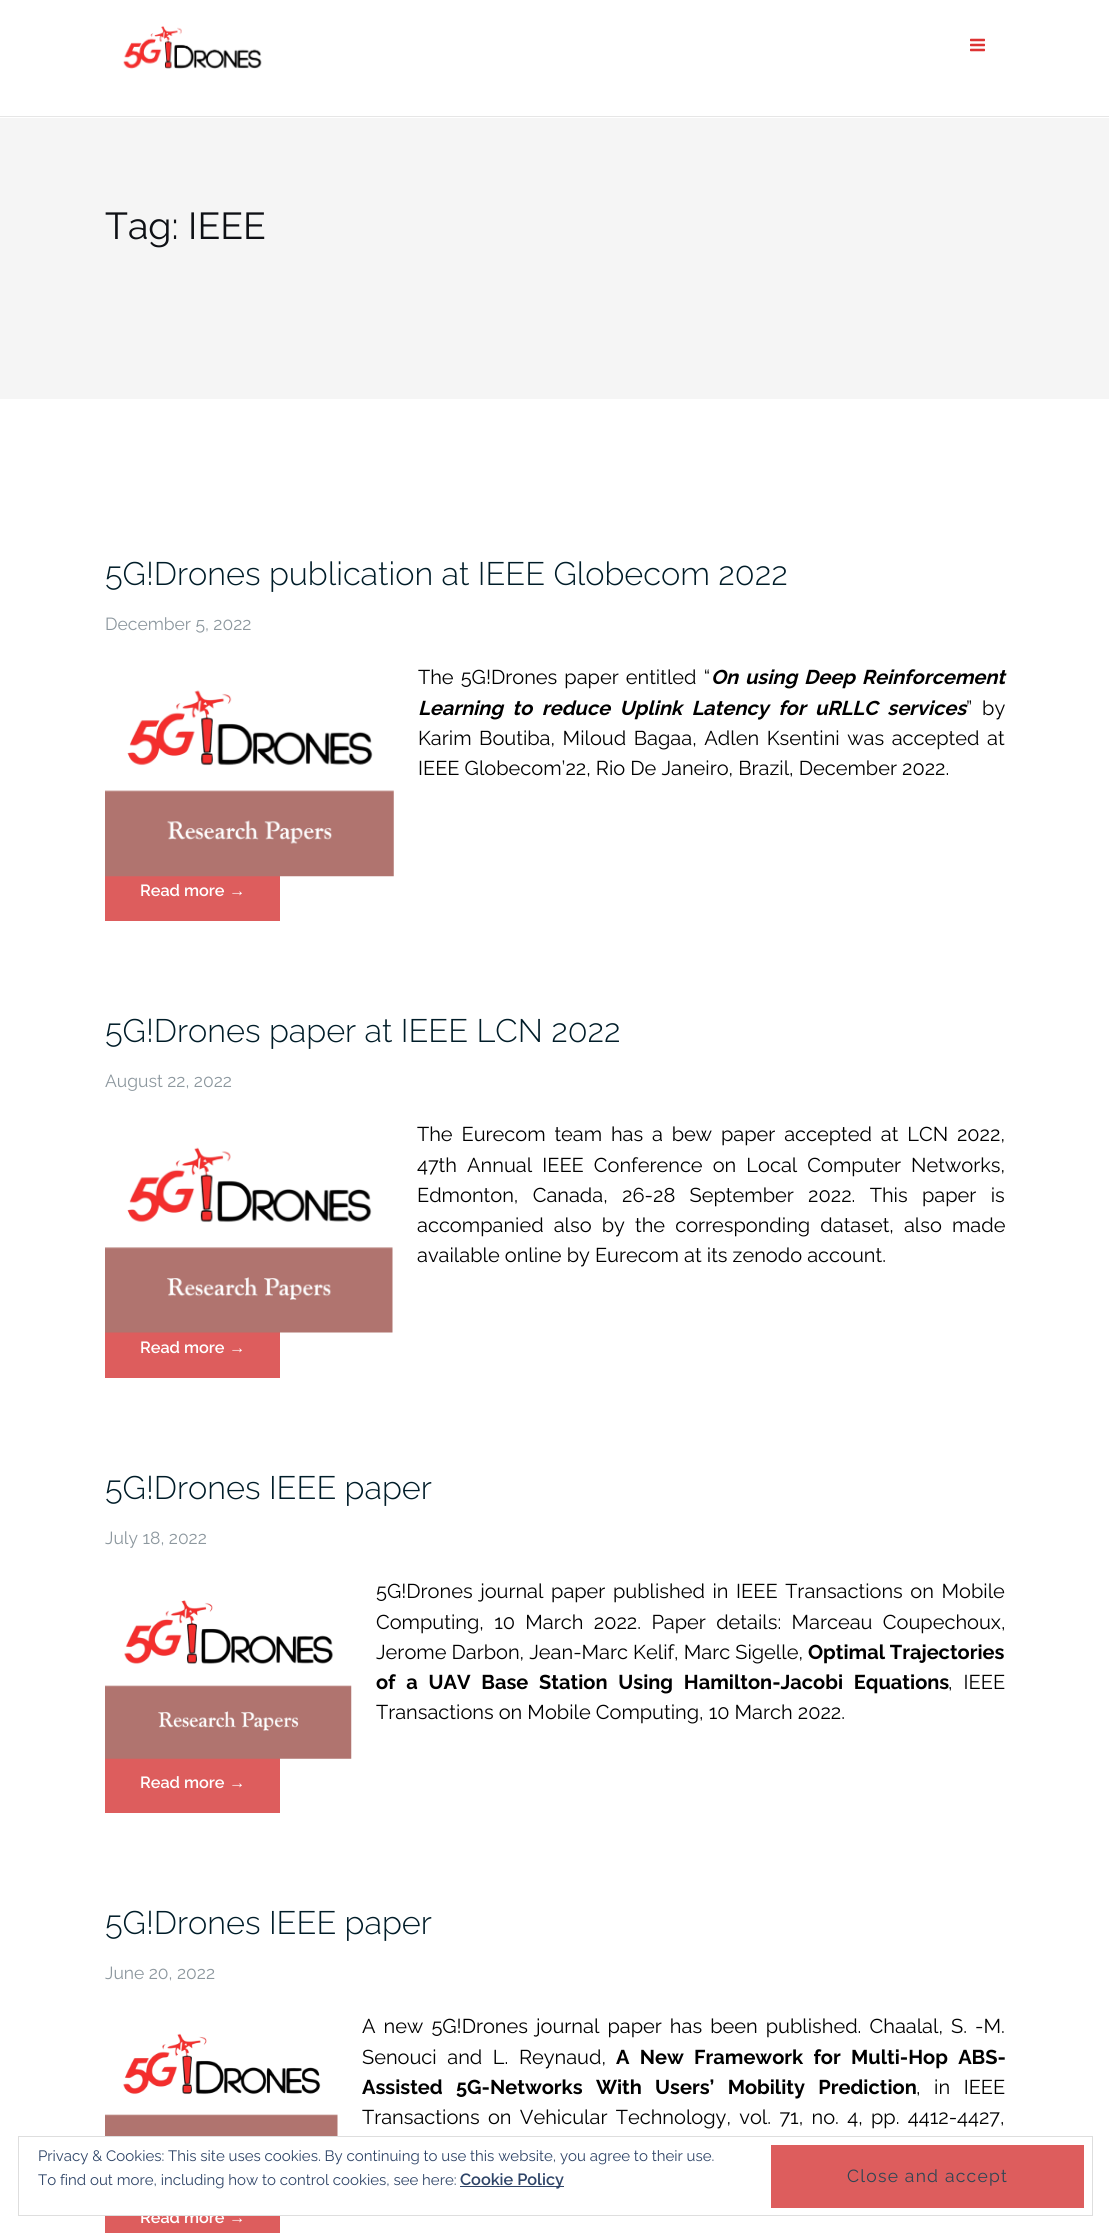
#include <cairo.h>
#include <math.h>
#include <stddef.h>

typedef struct { const char *family; double size; int italic, bold; unsigned color; } style_t;
static cairo_t *ctx;

static void ink(unsigned color) {
    cairo_set_source_rgb(ctx, (color >> 16) / 255.0, (color >> 8 & 255) / 255.0, (color & 255) / 255.0);
}

static void write(double x, double y, const char *s, const style_t *st) {
    cairo_select_font_face(ctx, st->family, st->italic ? CAIRO_FONT_SLANT_ITALIC : CAIRO_FONT_SLANT_NORMAL,
        st->bold ? CAIRO_FONT_WEIGHT_BOLD : CAIRO_FONT_WEIGHT_NORMAL);
    cairo_set_font_size(ctx, st->size);
    ink(st->color);
    cairo_move_to(ctx, x, y);
    cairo_show_text(ctx, s);
}

static void write_spaced(double x, double y, const char *s, double letter, double word) {
    cairo_move_to(ctx, x, y);
    while (*s) {
        char ch[5] = {0};
        int n = 0;
        do ch[n++] = *s++; while ((*s & 0xC0) == 0x80);
        cairo_show_text(ctx, ch);
        cairo_rel_move_to(ctx, letter + word * (*ch == ' '), 0);
    }
}

static void block(double x, double y, double w, double h, unsigned color) {
    ink(color);
    cairo_rectangle(ctx, x, y, w, h);
    cairo_fill(ctx);
}

static void paste(const char *path, double x, double y, double w, double h) {
    cairo_surface_t *image = cairo_image_surface_create_from_png(path);
    cairo_save(ctx);
    cairo_set_source_surface(ctx, image, x, y);
    cairo_rectangle(ctx, x, y, w, h);
    cairo_fill(ctx);
    cairo_restore(ctx);
    cairo_surface_destroy(image);
}

static const style_t s1 = {"Raleway", 37.5, 0, 0, 0x0e1015};
static const style_t s2 = {"Raleway Light", 32.5, 0, 0, 0x001c28};
static const style_t s3 = {"Raleway", 17.5, 0, 0, 0x8c979e};
static const style_t s4 = {"Raleway", 20, 0, 0, 0x000000};
static const style_t s5 = {"Raleway SemiBold", 16.25, 0, 0, 0xffffff};
static const style_t s6 = {"Liberation Sans", 16.25, 0, 0, 0xffffff};
static const style_t s7 = {"Raleway", 20, 0, 1, 0x000000};
static const style_t s8 = {"Raleway", 15, 0, 0, 0x2e4467};
static const style_t s9 = {"Raleway SemiBold", 16.25, 0, 0, 0x2e4467};

int main(void) {
    cairo_surface_t *surface = cairo_image_surface_create(CAIRO_FORMAT_RGB24, 1109, 2233);
    ctx = cairo_create(surface);
    cairo_font_options_t *options = cairo_font_options_create();
    cairo_font_options_set_hint_metrics(options, CAIRO_HINT_METRICS_OFF);
    cairo_font_options_set_hint_style(options, CAIRO_HINT_STYLE_NONE);
    cairo_set_font_options(ctx, options);
    cairo_set_miter_limit(ctx, 4);
    ink(0xffffff);
    cairo_paint(ctx);
    block(0, 116, 1109, 1, 0xe6e6e6);
    paste("pic1.png", 123, 26, 139, 43);
    paste("pic2.png", 970, 38, 15, 14);
    block(0, 118, 1109, 281, 0xf5f5f5);
    write(105, 239, "Tag: IEEE", &s1);
    write(105, 585, "5G!Drones publication at IEEE Globecom 2022", &s2);
    write(105, 630, "December 5, 2022", &s3);
    cairo_set_font_size(ctx, 20);
    ink(0x000000);
    write_spaced(418, 684, "The 5G!Drones paper entitled “", 0, 2);
    cairo_select_font_face(ctx, "Raleway", CAIRO_FONT_SLANT_ITALIC, CAIRO_FONT_WEIGHT_BOLD);
    write_spaced(711, 684, "On using Deep Reinforcement", 0, 2);
    block(105, 876, 175, 45, 0xdd5d5d);
    paste("pic3.png", 105, 690, 289, 187);
    ink(0x000000);
    write_spaced(418, 715, "Learning to reduce Uplink Latency for uRLLC services", 0, 4.75);
    cairo_select_font_face(ctx, "Raleway", CAIRO_FONT_SLANT_NORMAL, CAIRO_FONT_WEIGHT_NORMAL);
    write_spaced(966, 715, "” by", 0, 4.75);
    write_spaced(418, 745, "Karim Boutiba, Miloud Bagaa, Adlen Ksentini was accepted at", 0, 2.5);
    write(418, 775, "IEEE Globecom’22, Rio De Janeiro, Brazil, December 2022.", &s4);
    write(140, 896, "Read more", &s5);
    write(229, 896, "→", &s6);
    write(105, 1042, "5G!Drones paper at IEEE LCN 2022", &s2);
    write(105, 1087, "August 22, 2022", &s3);
    cairo_set_font_size(ctx, 20);
    ink(0x000000);
    write_spaced(417, 1141, "The Eurecom team has a bew paper accepted at LCN 2022,", 0, 3.75);
    block(105, 1332, 175, 46, 0xdd5d5d);
    paste("pic4.png", 105, 1147, 288, 186);
    ink(0x000000);
    write_spaced(417, 1172, "47th Annual IEEE Conference on Local Computer Networks,", 0, 5);
    write_spaced(417, 1202, "Edmonton, Canada, 26-28 September 2022. This paper is", 0, 9.25);
    write_spaced(417, 1232, "accompanied also by the corresponding dataset, also made", 0, 5);
    write(417, 1262, "available online by Eurecom at its zenodo account.", &s4);
    write(140, 1353, "Read more", &s5);
    write(229, 1353, "→", &s6);
    write(105, 1499, "5G!Drones IEEE paper", &s2);
    write(105, 1544, "July 18, 2022", &s3);
    cairo_set_font_size(ctx, 20);
    ink(0x000000);
    write_spaced(376, 1598, "5G!Drones journal paper published in IEEE Transactions on Mobile", 0, 2.5);
    block(105, 1758, 175, 55, 0xdd5d5d);
    paste("pic5.png", 105, 1600, 247, 159);
    ink(0x000000);
    write_spaced(376, 1629, "Computing, 10 March 2022. Paper details: Marceau Coupechoux,", 0, 5.25);
    write(376, 1659, "Jerome Darbon, Jean-Marc Kelif, Marc Sigelle,", &s4);
    write(808, 1659, "Optimal Trajectories", &s7);
    write_spaced(376, 1689, "of a UAV Base Station Using Hamilton-Jacobi Equations", 0, 6);
    cairo_select_font_face(ctx, "Raleway", CAIRO_FONT_SLANT_NORMAL, CAIRO_FONT_WEIGHT_NORMAL);
    write_spaced(948, 1689, ", IEEE", 0, 6);
    write(376, 1719, "Transactions on Mobile Computing, 10 March 2022.", &s4);
    write(140, 1788, "Read more", &s5);
    write(229, 1788, "→", &s6);
    write(105, 1934, "5G!Drones IEEE paper", &s2);
    write(105, 1979, "June 20, 2022", &s3);
    cairo_set_font_size(ctx, 20);
    ink(0x000000);
    write_spaced(362, 2033, "A new 5G!Drones journal paper has been published. Chaalal, S. -M.", 0, 3);
    paste("pic6.png", 105, 2033, 233, 103);
    write_spaced(362, 2064, "Senouci and L. Reynaud,", 0, 5.5);
    cairo_select_font_face(ctx, "Raleway", CAIRO_FONT_SLANT_NORMAL, CAIRO_FONT_WEIGHT_BOLD);
    write_spaced(616, 2064, "A New Framework for Multi-Hop ABS-", 0, 5.5);
    write_spaced(362, 2094, "Assisted 5G-Networks With Users’ Mobility Prediction", 0, 8.5);
    cairo_select_font_face(ctx, "Raleway", CAIRO_FONT_SLANT_NORMAL, CAIRO_FONT_WEIGHT_NORMAL);
    write_spaced(916, 2094, ", in IEEE", 0, 8.5);
    write_spaced(362, 2124, "Transactions on Vehicular Technology, vol. 71, no. 4, pp. 4412-4427,", 0, 3.25);
    block(105, 2216, 175, 17, 0xdd5d5d);
    write(140, 2223, "Read more", &s5);
    write(229, 2223, "→", &s6);
    cairo_rectangle(ctx, 18.5, 2136.5, 1074, 79);
    ink(0xdedede);
    cairo_set_line_width(ctx, 1);
    cairo_stroke(ctx);
    write(38, 2161, "Privacy & Cookies: This site uses cookies. By continuing to use this website, you agree to their use.", &s8);
    write(38, 2185, "To find out more, including how to control cookies, see here:", &s8);
    block(460, 2186, 104, 1, 0x2e4467);
    write(460, 2185, "Cookie Policy", &s9);
    block(771, 2145, 313, 63, 0xdd5d5d);
    cairo_select_font_face(ctx, "Raleway", CAIRO_FONT_SLANT_NORMAL, CAIRO_FONT_WEIGHT_NORMAL);
    cairo_set_font_size(ctx, 17.5);
    ink(0x2e4453);
    write_spaced(847, 2182, "Close and accept", 1.25, 0);
    cairo_surface_write_to_png(surface, "screenshot.png");
    cairo_font_options_destroy(options);
    cairo_destroy(ctx);
    cairo_surface_destroy(surface);
    return 0;
}
